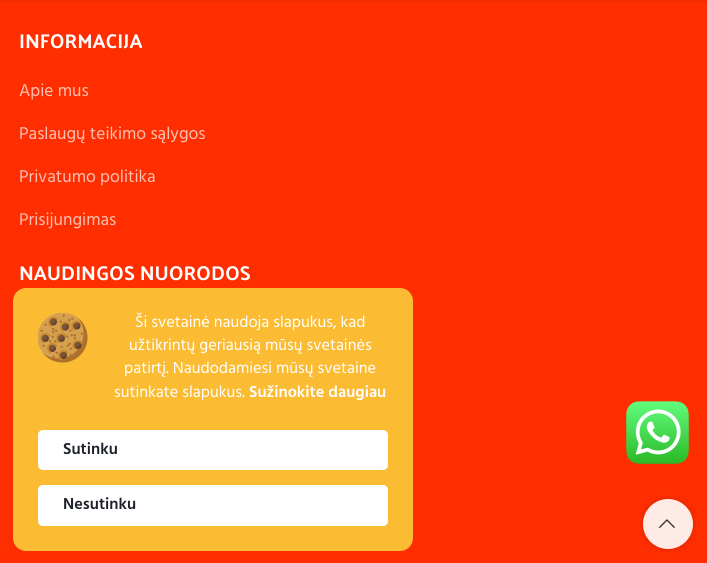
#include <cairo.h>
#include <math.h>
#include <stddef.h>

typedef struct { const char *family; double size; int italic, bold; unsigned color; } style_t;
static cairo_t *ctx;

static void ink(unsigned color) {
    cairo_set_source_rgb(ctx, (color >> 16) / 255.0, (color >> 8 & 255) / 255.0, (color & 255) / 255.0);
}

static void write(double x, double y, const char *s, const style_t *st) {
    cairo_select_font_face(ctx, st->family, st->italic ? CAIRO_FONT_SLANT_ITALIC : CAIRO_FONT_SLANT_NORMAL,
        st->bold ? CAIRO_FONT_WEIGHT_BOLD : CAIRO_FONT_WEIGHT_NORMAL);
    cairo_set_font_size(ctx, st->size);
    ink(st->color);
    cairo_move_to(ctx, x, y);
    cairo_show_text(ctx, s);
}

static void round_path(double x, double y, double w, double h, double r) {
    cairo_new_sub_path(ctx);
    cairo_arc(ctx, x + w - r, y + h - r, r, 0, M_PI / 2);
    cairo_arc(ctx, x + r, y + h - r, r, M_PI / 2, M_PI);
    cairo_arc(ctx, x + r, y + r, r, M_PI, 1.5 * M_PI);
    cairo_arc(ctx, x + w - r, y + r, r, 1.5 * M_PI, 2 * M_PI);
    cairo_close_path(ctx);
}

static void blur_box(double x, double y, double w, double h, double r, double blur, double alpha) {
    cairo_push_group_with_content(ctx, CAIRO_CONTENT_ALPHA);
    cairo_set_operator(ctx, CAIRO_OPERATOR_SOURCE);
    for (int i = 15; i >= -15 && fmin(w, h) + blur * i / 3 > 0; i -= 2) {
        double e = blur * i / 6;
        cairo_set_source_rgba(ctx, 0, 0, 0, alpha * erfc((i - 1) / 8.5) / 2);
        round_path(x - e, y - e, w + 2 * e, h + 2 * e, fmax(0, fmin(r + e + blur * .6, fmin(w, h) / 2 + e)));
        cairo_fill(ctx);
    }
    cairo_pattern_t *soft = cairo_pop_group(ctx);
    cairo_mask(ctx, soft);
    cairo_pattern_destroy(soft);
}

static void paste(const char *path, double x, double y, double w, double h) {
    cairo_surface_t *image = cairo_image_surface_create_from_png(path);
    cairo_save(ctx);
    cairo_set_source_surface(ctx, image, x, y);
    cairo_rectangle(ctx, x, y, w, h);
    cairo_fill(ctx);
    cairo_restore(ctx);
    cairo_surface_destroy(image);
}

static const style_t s1 = {"Palanquin Dark", 20, 0, 0, 0xffffff};
static const style_t s2 = {"Hind", 17.5, 0, 0, 0xffc0b3};
static const style_t s3 = {"Hind", 16.25, 0, 0, 0xffffff};
static const style_t s4 = {"Hind SemiBold", 16.25, 0, 0, 0xffffff};
static const style_t s5 = {"Hind SemiBold", 16.25, 0, 0, 0x1d2129};

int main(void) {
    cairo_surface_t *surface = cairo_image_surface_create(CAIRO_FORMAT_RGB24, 707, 563);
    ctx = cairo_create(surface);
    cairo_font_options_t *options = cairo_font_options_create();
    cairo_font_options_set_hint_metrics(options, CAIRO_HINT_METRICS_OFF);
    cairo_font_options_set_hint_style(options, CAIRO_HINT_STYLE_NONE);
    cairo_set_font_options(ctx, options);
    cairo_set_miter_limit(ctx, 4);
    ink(0xff2e00);
    cairo_paint(ctx);
    ink(0x000000);
    blur_box(0, -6, 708, 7, 0, 2, 0.1);
    write(19, 48, "INFORMACIJA", &s1);
    write(19, 96, "Apie mus", &s2);
    write(19, 139, "Paslaugų teikimo sąlygos", &s2);
    write(19, 182, "Privatumo politika", &s2);
    write(19, 225, "Prisijungimas", &s2);
    write(19, 280, "NAUDINGOS NUORODOS", &s1);
    ink(0xfbbc34);
    round_path(13, 288, 400, 263, 13);
    cairo_fill(ctx);
    paste("pic1.png", 38, 313, 50, 50);
    write(135, 327, "Ši svetainė naudoja slapukus, kad", &s3);
    write(129, 350, "užtikrintų geriausią mūsų svetainės", &s3);
    write(124, 373, "patirtį. Naudodamiesi mūsų svetaine", &s3);
    write(114, 397, "sutinkate slapukus.", &s3);
    write(249, 397, "Sužinokite daugiau", &s4);
    round_path(38, 430, 350, 40, 5);
    cairo_fill(ctx);
    write(63, 454, "Sutinku", &s5);
    ink(0xffffff);
    round_path(38, 485, 350, 41, 5);
    cairo_fill(ctx);
    round_path(38.5, 485.5, 349, 40, 4.5);
    cairo_set_source_rgba(ctx, 1, 1, 1, 0.3);
    cairo_set_line_width(ctx, 1);
    cairo_stroke(ctx);
    write(63, 509, "Nesutinku", &s5);
    paste("pic2.png", 626, 401, 63, 63);
    cairo_save(ctx);
    cairo_set_fill_rule(ctx, CAIRO_FILL_RULE_EVEN_ODD);
    cairo_new_path(ctx);
    cairo_move_to(ctx, 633, 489);
    cairo_line_to(ctx, 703, 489);
    cairo_line_to(ctx, 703, 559);
    cairo_line_to(ctx, 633, 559);
    cairo_close_path(ctx);
    cairo_move_to(ctx, 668, 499);
    cairo_curve_to(ctx, 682, 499, 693, 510, 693, 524);
    cairo_curve_to(ctx, 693, 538, 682, 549, 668, 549);
    cairo_curve_to(ctx, 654, 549, 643, 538, 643, 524);
    cairo_curve_to(ctx, 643, 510, 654, 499, 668, 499);
    cairo_close_path(ctx);
    cairo_clip(ctx);
    ink(0x000000);
    blur_box(643, 499, 50, 50, 25, 3, 0.17);
    cairo_restore(ctx);
    cairo_set_source_rgba(ctx, 1, 1, 1, 0.9);
    cairo_arc(ctx, 668, 524, 25, 0, 2 * M_PI);
    cairo_fill(ctx);
    paste("pic3.png", 658, 519, 17, 9);
    cairo_surface_write_to_png(surface, "screenshot.png");
    cairo_font_options_destroy(options);
    cairo_destroy(ctx);
    cairo_surface_destroy(surface);
    return 0;
}
